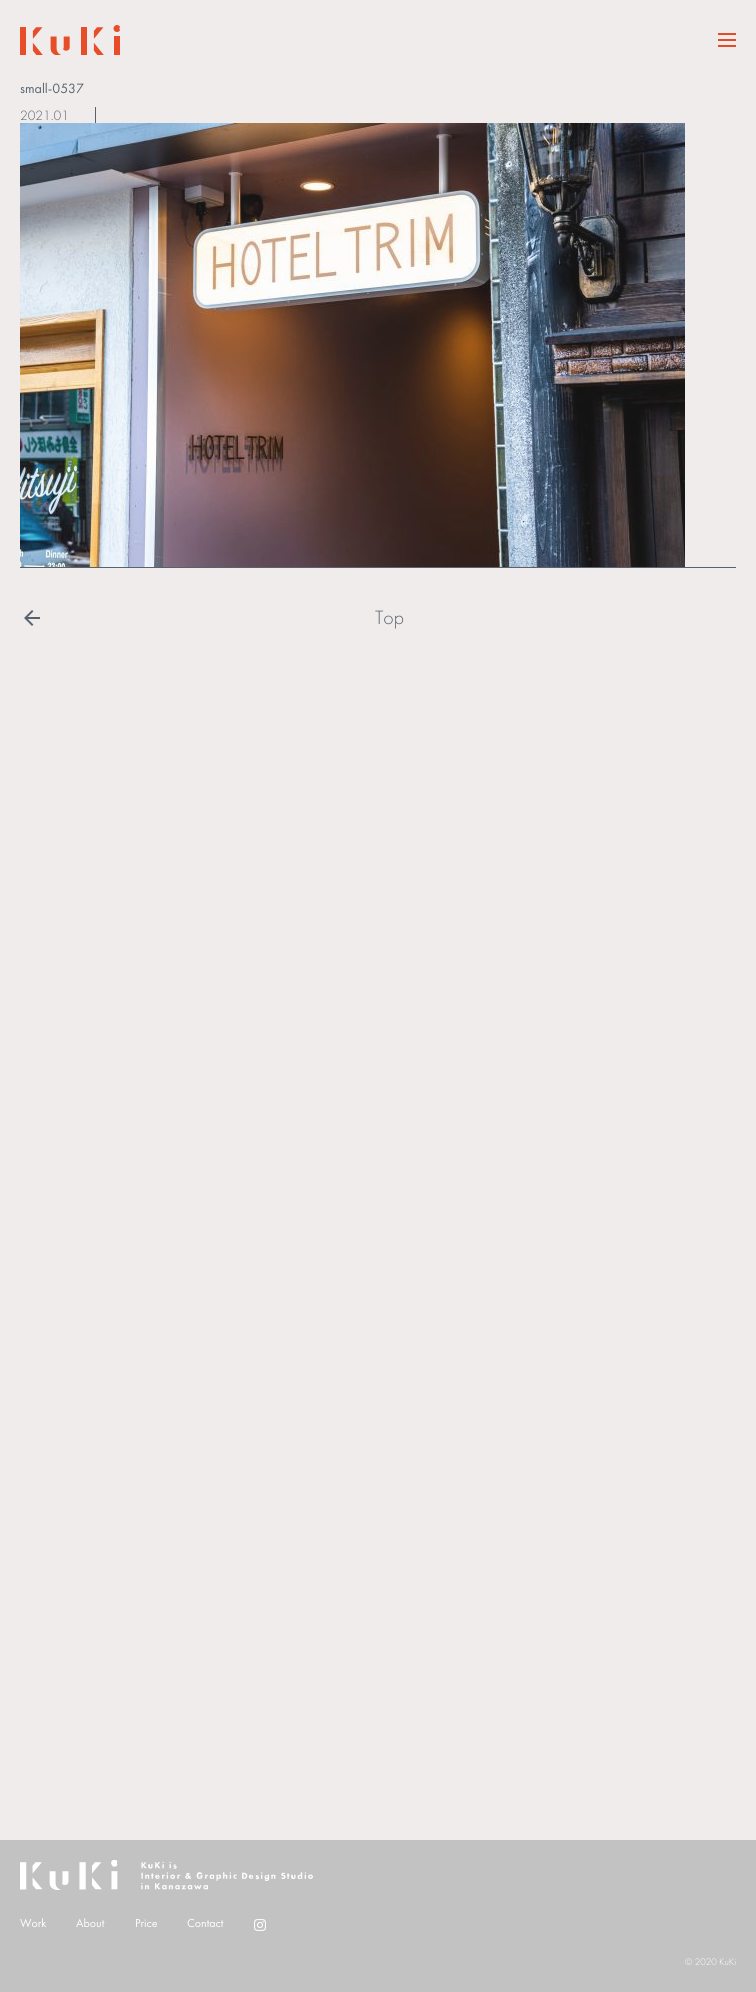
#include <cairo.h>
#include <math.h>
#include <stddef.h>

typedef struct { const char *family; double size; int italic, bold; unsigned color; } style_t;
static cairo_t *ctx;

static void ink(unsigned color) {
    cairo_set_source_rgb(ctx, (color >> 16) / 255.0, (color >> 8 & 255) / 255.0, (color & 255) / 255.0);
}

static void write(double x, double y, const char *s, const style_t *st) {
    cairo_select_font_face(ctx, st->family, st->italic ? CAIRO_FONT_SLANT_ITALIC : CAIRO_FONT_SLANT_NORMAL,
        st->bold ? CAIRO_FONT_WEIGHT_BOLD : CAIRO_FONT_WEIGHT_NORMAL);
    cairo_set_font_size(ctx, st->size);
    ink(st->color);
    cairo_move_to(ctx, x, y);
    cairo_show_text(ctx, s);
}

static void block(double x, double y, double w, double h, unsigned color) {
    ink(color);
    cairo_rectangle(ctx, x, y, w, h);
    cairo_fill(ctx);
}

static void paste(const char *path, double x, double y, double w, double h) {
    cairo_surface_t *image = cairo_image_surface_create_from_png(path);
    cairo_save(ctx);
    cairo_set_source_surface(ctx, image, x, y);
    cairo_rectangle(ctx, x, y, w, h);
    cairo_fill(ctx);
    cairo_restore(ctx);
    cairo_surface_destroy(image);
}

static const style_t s1 = {"Futura PT", 14, 0, 0, 0x58636e};
static const style_t s2 = {"Futura PT Light", 14, 0, 0, 0x58636e};
static const style_t s3 = {"Futura PT Light", 20, 0, 0, 0x58636e};
static const style_t s4 = {"Futura PT", 12, 0, 0, 0xffffff};
static const style_t s5 = {"Futura PT Light", 10, 0, 0, 0xffffff};

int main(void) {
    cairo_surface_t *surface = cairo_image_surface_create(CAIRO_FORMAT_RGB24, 756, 1992);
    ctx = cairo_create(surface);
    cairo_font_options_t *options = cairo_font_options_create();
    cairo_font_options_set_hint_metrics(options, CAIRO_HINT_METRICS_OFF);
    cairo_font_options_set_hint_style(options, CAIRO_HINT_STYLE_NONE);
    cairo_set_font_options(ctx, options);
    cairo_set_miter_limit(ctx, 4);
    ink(0xf0eceb);
    cairo_paint(ctx);
    paste("pic1.png", 20, 25, 100, 30);
    block(718, 33, 18, 2, 0xe14d29);
    block(718, 39, 18, 2, 0xe14d29);
    block(718, 45, 18, 2, 0xe14d29);
    write(20, 93, "small-0537", &s1);
    block(95, 107, 1, 16, 0x58636e);
    write(20, 120, "2021.01", &s2);
    paste("pic2.png", 20, 123, 665, 444);
    block(20, 567, 716, 1, 0x58636e);
    paste("pic3.png", 24, 610, 16, 16);
    write(375, 624, "Top", &s3);
    block(0, 1840, 756, 152, 0xc3c2c2);
    paste("pic4.png", 20, 1860, 293, 30);
    write(20, 1927, "Work", &s4);
    write(76, 1927, "About", &s4);
    write(135, 1927, "Price", &s4);
    write(187, 1927, "Contact", &s4);
    paste("pic5.png", 254, 1919, 12, 12);
    write(685, 1965, "© 2020 KuKi", &s5);
    cairo_surface_write_to_png(surface, "screenshot.png");
    cairo_font_options_destroy(options);
    cairo_destroy(ctx);
    cairo_surface_destroy(surface);
    return 0;
}
